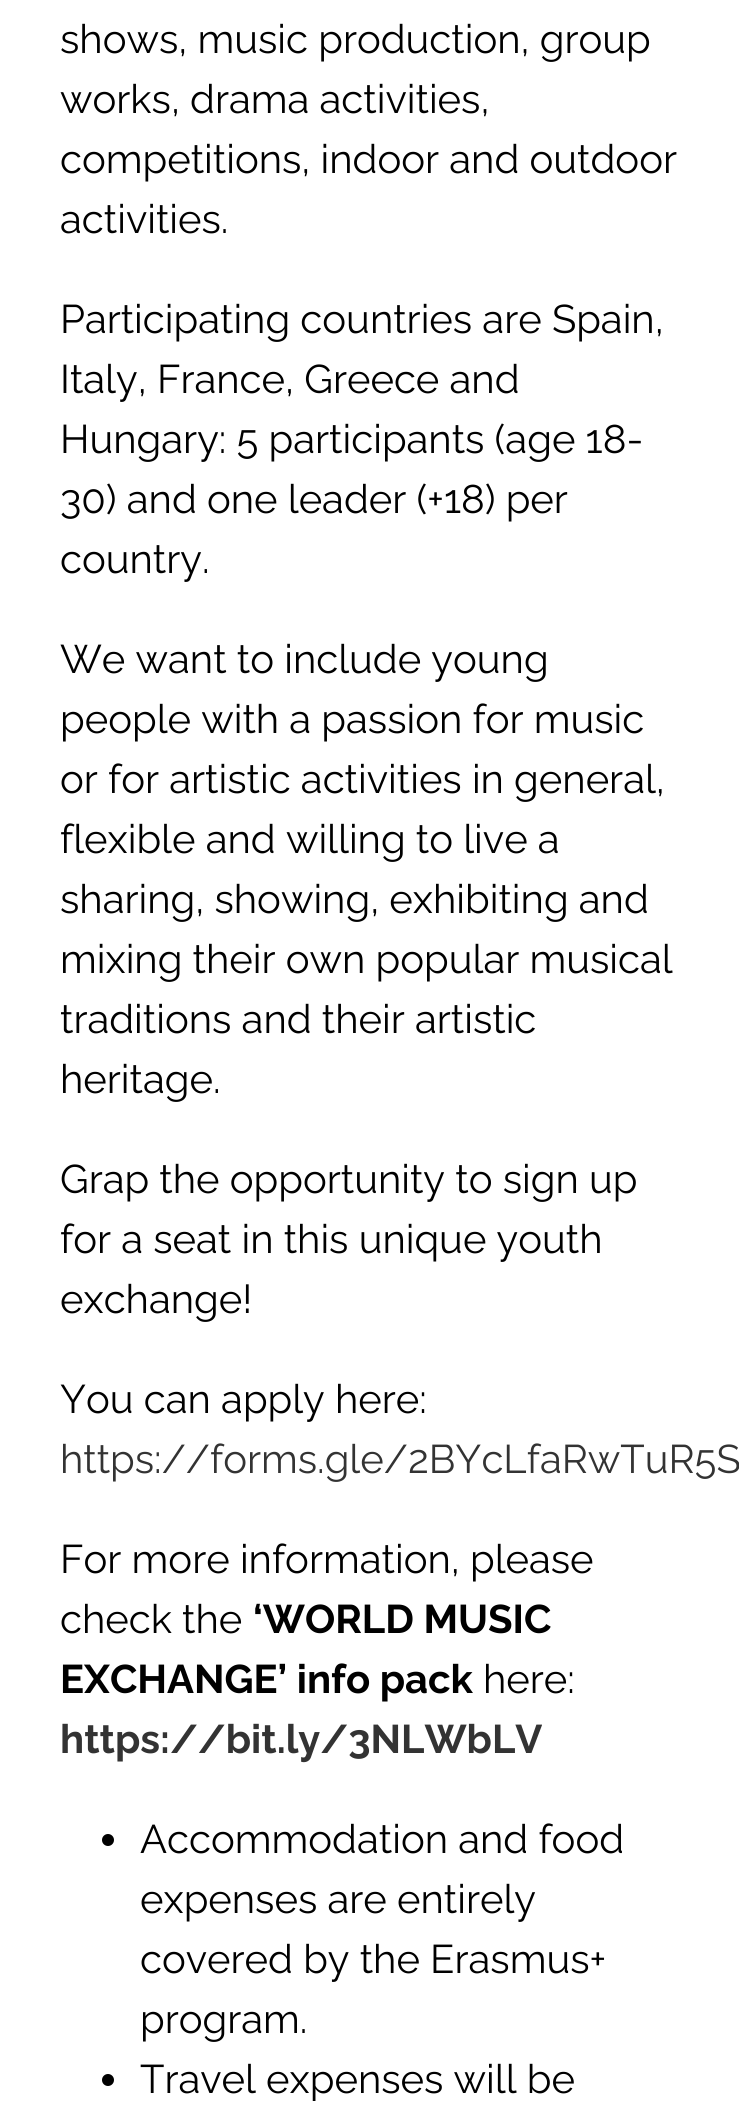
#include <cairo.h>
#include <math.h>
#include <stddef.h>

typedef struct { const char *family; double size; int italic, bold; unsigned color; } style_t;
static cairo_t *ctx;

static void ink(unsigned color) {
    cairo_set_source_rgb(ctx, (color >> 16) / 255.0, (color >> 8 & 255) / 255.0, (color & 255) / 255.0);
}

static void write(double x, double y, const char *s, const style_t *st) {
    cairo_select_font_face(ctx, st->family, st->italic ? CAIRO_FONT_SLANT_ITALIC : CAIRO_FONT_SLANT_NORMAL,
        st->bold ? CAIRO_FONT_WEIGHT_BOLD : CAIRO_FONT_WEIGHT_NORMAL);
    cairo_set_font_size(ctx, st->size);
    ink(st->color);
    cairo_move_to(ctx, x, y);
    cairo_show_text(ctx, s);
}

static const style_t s1 = {"Raleway", 40, 0, 0, 0x000000};
static const style_t s2 = {"Raleway", 40, 0, 0, 0x333333};
static const style_t s3 = {"Raleway", 40, 0, 1, 0x000000};
static const style_t s4 = {"Raleway", 40, 0, 1, 0x333333};

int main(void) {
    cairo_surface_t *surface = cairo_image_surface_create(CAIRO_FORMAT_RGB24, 739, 2101);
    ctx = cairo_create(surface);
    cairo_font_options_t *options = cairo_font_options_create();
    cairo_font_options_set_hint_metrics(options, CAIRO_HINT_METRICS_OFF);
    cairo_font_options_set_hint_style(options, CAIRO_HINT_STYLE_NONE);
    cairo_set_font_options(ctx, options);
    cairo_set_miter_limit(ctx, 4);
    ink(0xffffff);
    cairo_paint(ctx);
    write(60, 53, "shows, music production, group", &s1);
    write(60, 113, "works, drama activities,", &s1);
    write(60, 173, "competitions, indoor and outdoor", &s1);
    write(60, 233, "activities.", &s1);
    write(60, 333, "Participating countries are Spain,", &s1);
    write(60, 393, "Italy, France, Greece and", &s1);
    write(60, 453, "Hungary: 5 participants (age 18-", &s1);
    write(60, 513, "30) and one leader (+18) per", &s1);
    write(60, 573, "country.", &s1);
    write(60, 673, "We want to include young", &s1);
    write(60, 733, "people with a passion for music", &s1);
    write(60, 793, "or for artistic activities in general,", &s1);
    write(60, 853, "flexible and willing to live a", &s1);
    write(60, 913, "sharing, showing, exhibiting and", &s1);
    write(60, 973, "mixing their own popular musical", &s1);
    write(60, 1033, "traditions and their artistic", &s1);
    write(60, 1093, "heritage.", &s1);
    write(60, 1193, "Grap the opportunity to sign up", &s1);
    write(60, 1253, "for a seat in this unique youth", &s1);
    write(60, 1313, "exchange!", &s1);
    write(60, 1413, "You can apply here:", &s1);
    write(60, 1473, "https://forms.gle/2BYcLfaRwTuR5S", &s2);
    write(60, 1573, "For more information, please", &s1);
    write(60, 1633, "check the", &s1);
    write(253, 1633, "‘WORLD MUSIC", &s3);
    write(60, 1693, "EXCHANGE’ info pack", &s3);
    write(483, 1693, "here:", &s1);
    write(60, 1753, "https://bit.ly/3NLWbLV", &s4);
    ink(0x000000);
    cairo_new_path(ctx);
    cairo_arc(ctx, 108, 1840, 6, 0, 2 * M_PI);
    cairo_fill(ctx);
    write(140, 1853, "Accommodation and food", &s1);
    write(140, 1913, "expenses are entirely", &s1);
    write(140, 1973, "covered by the Erasmus+", &s1);
    write(140, 2033, "program.", &s1);
    cairo_new_path(ctx);
    cairo_arc(ctx, 108, 2080, 6, 0, 2 * M_PI);
    cairo_fill(ctx);
    write(140, 2093, "Travel expenses will be", &s1);
    cairo_surface_write_to_png(surface, "screenshot.png");
    cairo_font_options_destroy(options);
    cairo_destroy(ctx);
    cairo_surface_destroy(surface);
    return 0;
}
